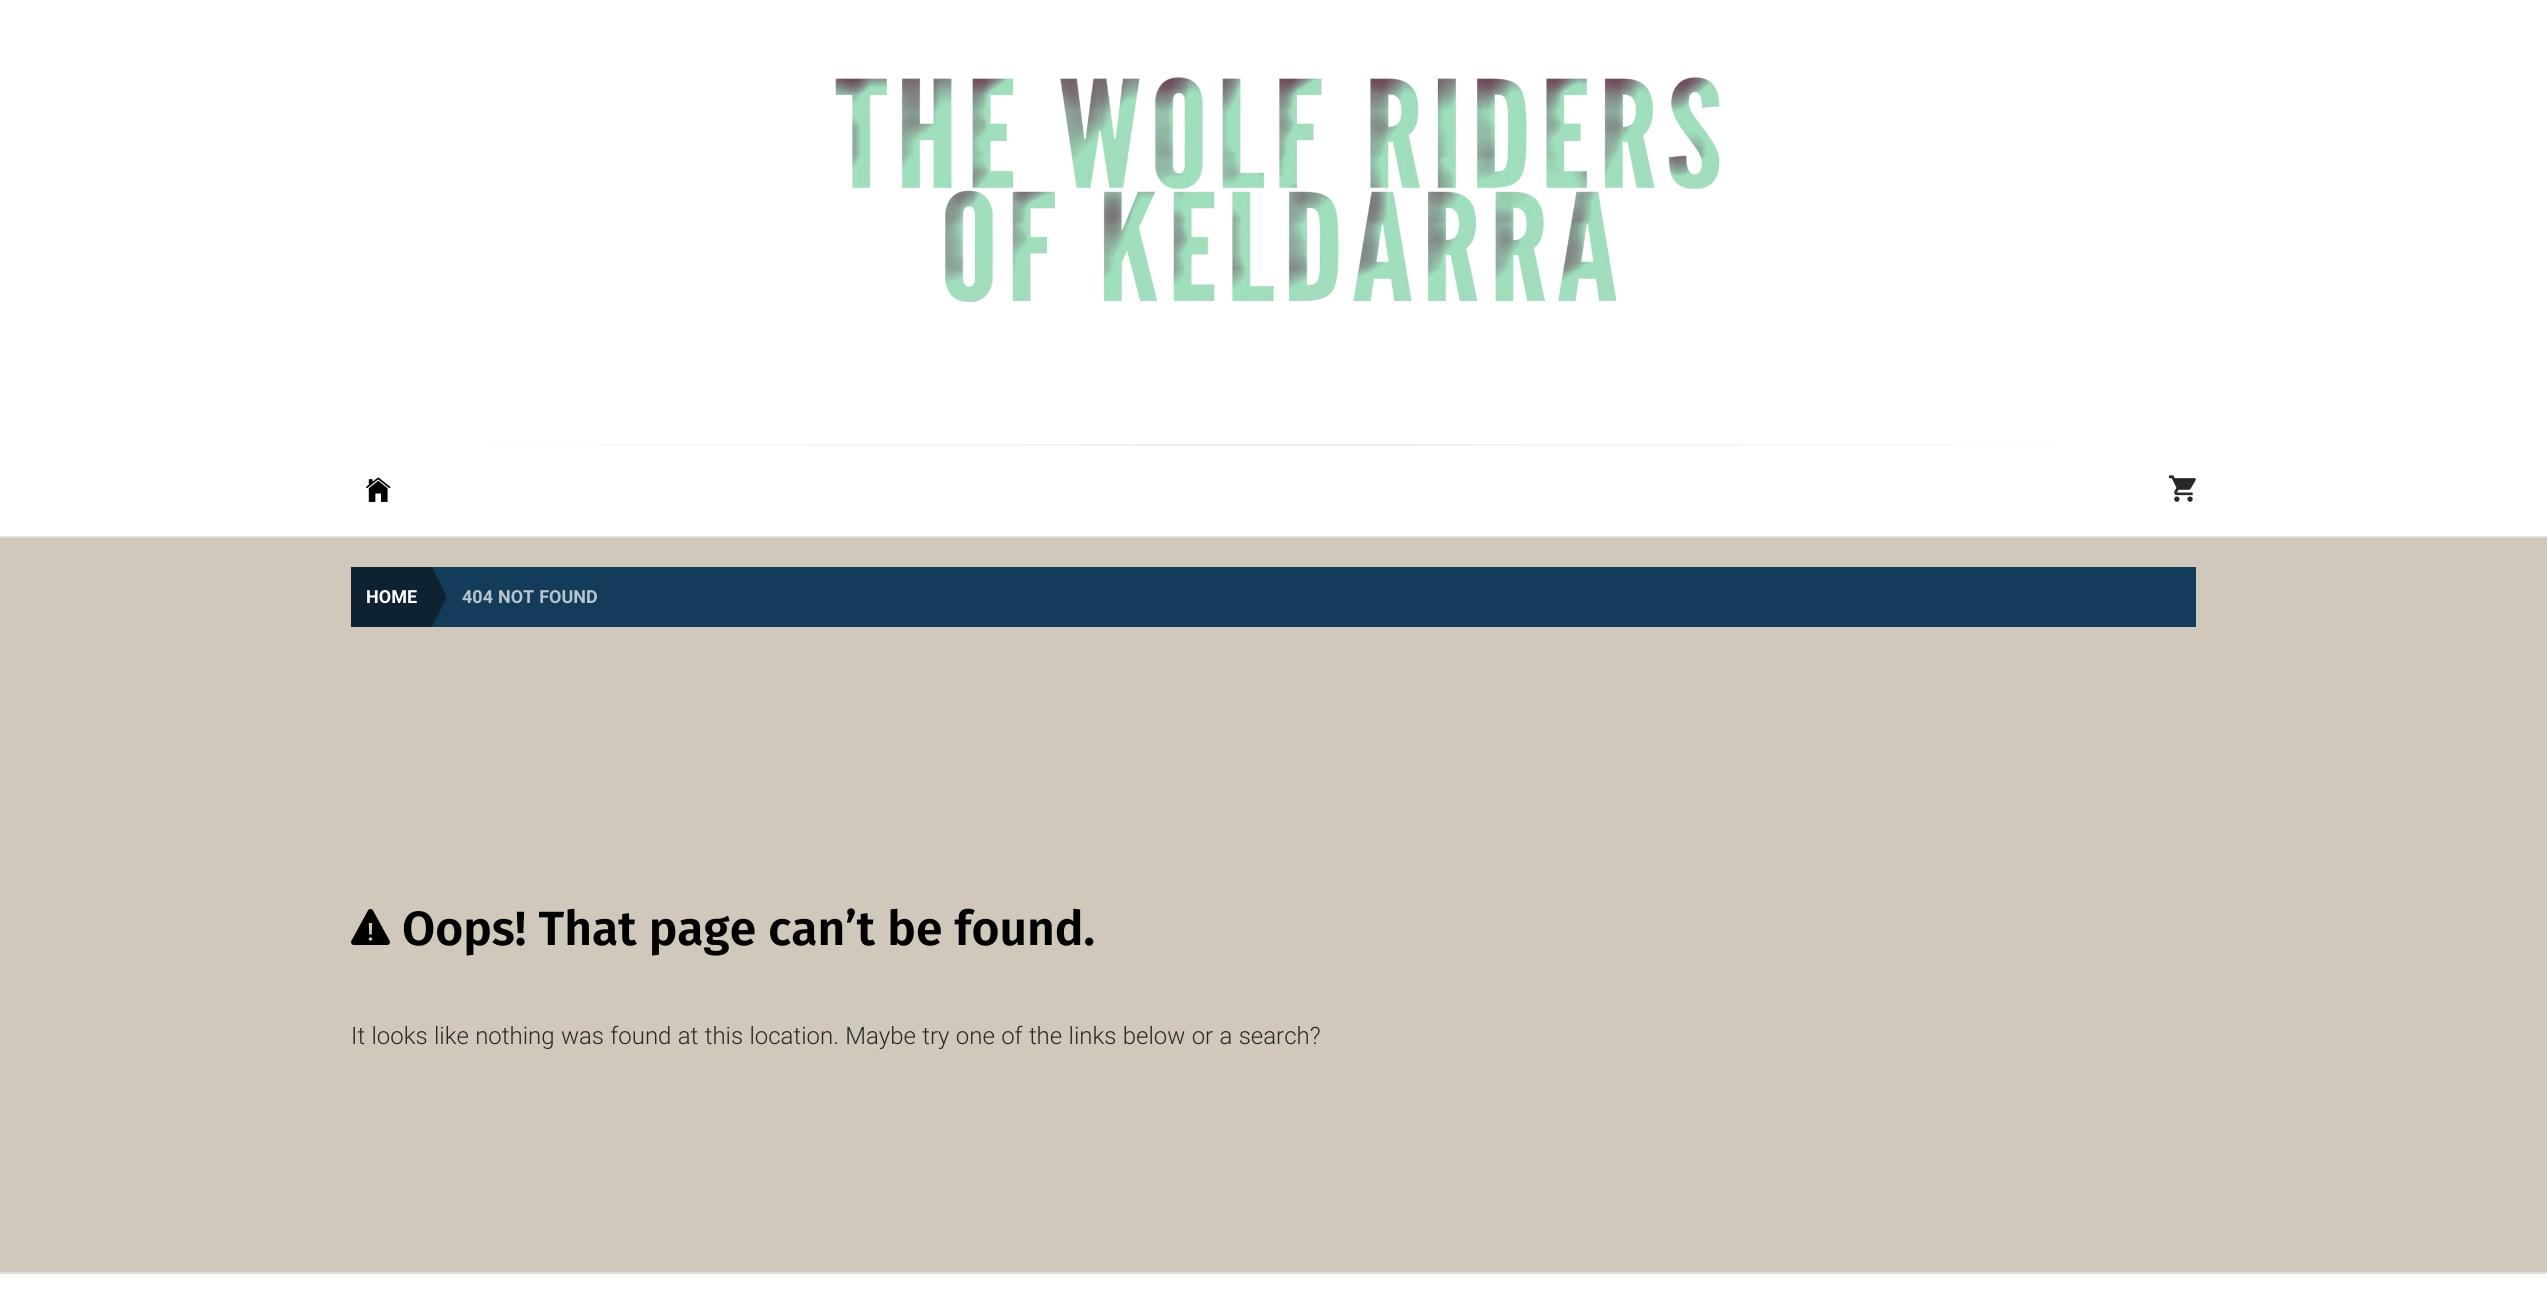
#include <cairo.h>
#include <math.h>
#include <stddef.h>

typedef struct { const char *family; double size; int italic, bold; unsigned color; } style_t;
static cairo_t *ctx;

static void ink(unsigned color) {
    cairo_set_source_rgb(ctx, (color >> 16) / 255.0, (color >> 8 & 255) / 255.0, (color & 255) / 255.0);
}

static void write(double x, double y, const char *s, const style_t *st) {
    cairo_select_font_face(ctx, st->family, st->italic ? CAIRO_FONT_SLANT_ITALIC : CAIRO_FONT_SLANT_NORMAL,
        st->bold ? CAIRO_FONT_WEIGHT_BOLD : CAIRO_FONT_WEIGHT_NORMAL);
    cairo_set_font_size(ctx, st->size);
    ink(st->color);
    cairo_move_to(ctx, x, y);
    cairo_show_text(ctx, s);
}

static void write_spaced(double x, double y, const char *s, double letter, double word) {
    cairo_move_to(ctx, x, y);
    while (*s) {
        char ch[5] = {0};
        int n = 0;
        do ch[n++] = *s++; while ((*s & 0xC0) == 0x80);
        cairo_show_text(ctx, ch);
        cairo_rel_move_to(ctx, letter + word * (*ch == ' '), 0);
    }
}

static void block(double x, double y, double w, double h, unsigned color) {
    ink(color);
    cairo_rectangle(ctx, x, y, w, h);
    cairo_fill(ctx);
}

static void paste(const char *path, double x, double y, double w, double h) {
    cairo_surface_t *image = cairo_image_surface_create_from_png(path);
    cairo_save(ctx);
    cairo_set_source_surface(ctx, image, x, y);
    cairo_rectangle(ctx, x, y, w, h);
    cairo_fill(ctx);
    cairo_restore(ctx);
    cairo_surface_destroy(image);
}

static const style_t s1 = {"Roboto", 18, 0, 1, 0xffffff};

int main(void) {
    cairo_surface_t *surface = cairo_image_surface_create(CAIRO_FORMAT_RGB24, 2547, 1311);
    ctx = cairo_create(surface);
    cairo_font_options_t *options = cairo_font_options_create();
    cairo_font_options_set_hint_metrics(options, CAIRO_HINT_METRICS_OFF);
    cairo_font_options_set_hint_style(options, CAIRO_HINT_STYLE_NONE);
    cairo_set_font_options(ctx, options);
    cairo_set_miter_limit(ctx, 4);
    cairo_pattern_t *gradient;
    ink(0xd1c8bc);
    cairo_paint(ctx);
    block(0, 0, 2547, 536, 0xffffff);
    paste("pic1.png", 835, 77, 885, 226);
    block(0, 536, 2547, 2, 0xdedede);
    gradient = cairo_pattern_create_linear(2196, 445, 351, 445);
    cairo_pattern_add_color_stop_rgba(gradient, 0, 1, 1, 1, 1);
    cairo_pattern_add_color_stop_rgba(gradient, 0.5, 0.933, 0.933, 0.933, 1);
    cairo_pattern_add_color_stop_rgba(gradient, 1, 1, 1, 1, 1);
    cairo_set_source(ctx, gradient);
    cairo_pattern_destroy(gradient);
    cairo_rectangle(ctx, 487, 444, 1573, 2);
    cairo_fill(ctx);
    paste("pic2.png", 366, 477, 25, 25);
    paste("pic3.png", 2169, 475, 27, 27);
    block(432, 567, 1764, 60, 0x133b5a);
    block(351, 567, 81, 60, 0x0e2231);
    write(366, 603, "HOME", &s1);
    ink(0x0e2231);
    cairo_new_path(ctx);
    cairo_move_to(ctx, 432, 627);
    cairo_line_to(ctx, 432, 567);
    cairo_line_to(ctx, 447, 597);
    cairo_close_path(ctx);
    cairo_fill(ctx);
    ink(0xb8c4ce);
    write_spaced(462, 603, "404 NOT FOUND", 0, 0.5);
    paste("pic4.png", 351, 909, 39, 36);
    cairo_select_font_face(ctx, "Fira Sans SemiBold", CAIRO_FONT_SLANT_NORMAL, CAIRO_FONT_WEIGHT_NORMAL);
    cairo_set_font_size(ctx, 48);
    ink(0x000000);
    write_spaced(402, 945, "Oops! That page can’t be found.", 0, 0.5);
    cairo_select_font_face(ctx, "Roboto Light", CAIRO_FONT_SLANT_NORMAL, CAIRO_FONT_WEIGHT_NORMAL);
    cairo_set_font_size(ctx, 24);
    ink(0x282828);
    write_spaced(351, 1044, "It looks like nothing was found at this location. Maybe try one of the links below or a search?", 0, 0.5);
    block(0, 1274, 2547, 37, 0xffffff);
    block(0, 1272, 2547, 2, 0xdedede);
    cairo_surface_write_to_png(surface, "screenshot.png");
    cairo_font_options_destroy(options);
    cairo_destroy(ctx);
    cairo_surface_destroy(surface);
    return 0;
}
